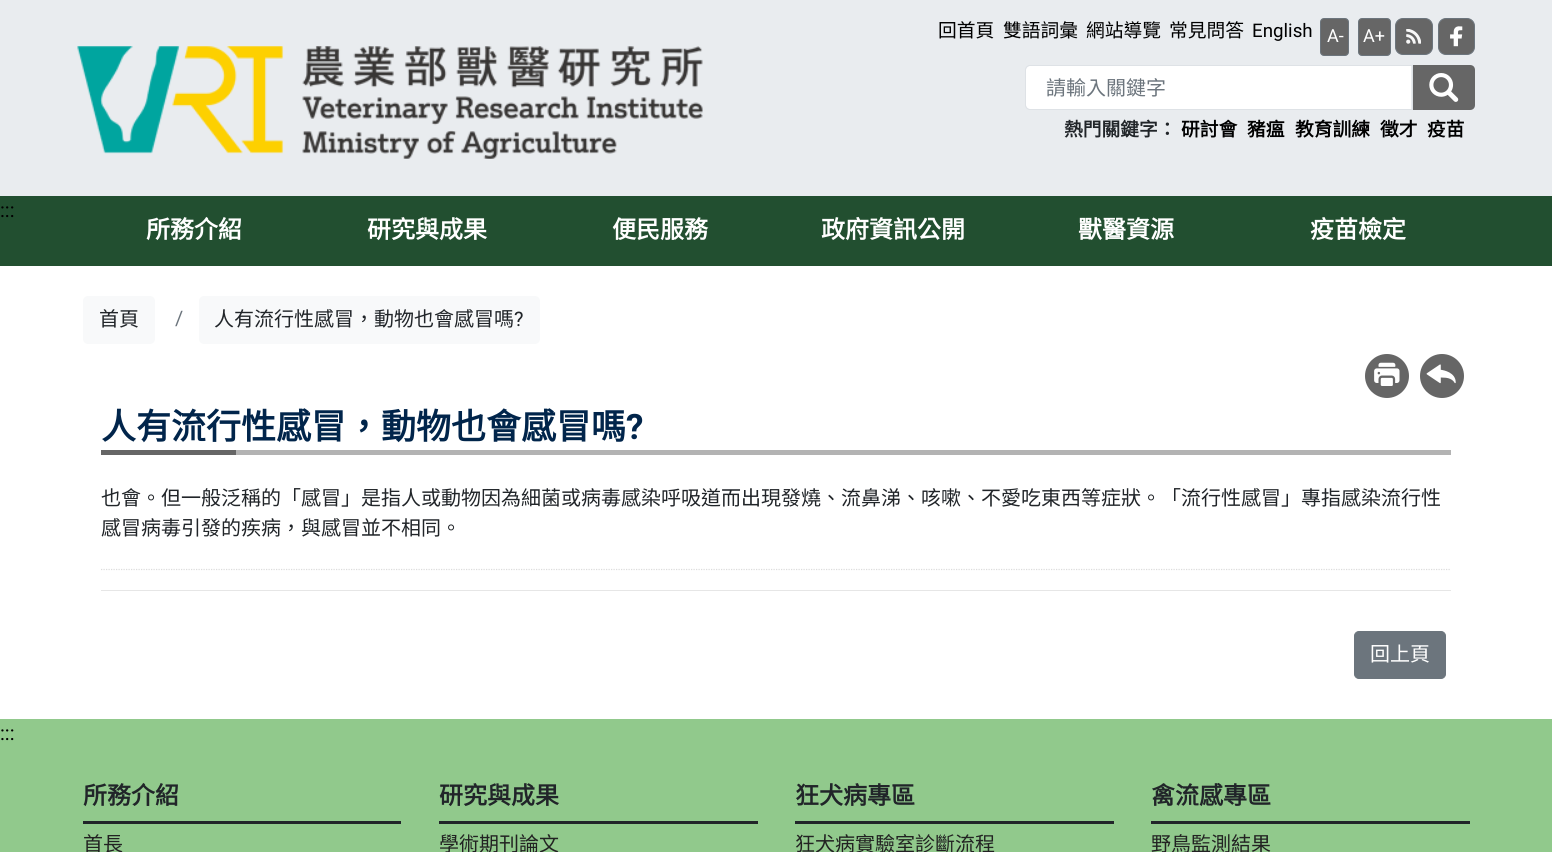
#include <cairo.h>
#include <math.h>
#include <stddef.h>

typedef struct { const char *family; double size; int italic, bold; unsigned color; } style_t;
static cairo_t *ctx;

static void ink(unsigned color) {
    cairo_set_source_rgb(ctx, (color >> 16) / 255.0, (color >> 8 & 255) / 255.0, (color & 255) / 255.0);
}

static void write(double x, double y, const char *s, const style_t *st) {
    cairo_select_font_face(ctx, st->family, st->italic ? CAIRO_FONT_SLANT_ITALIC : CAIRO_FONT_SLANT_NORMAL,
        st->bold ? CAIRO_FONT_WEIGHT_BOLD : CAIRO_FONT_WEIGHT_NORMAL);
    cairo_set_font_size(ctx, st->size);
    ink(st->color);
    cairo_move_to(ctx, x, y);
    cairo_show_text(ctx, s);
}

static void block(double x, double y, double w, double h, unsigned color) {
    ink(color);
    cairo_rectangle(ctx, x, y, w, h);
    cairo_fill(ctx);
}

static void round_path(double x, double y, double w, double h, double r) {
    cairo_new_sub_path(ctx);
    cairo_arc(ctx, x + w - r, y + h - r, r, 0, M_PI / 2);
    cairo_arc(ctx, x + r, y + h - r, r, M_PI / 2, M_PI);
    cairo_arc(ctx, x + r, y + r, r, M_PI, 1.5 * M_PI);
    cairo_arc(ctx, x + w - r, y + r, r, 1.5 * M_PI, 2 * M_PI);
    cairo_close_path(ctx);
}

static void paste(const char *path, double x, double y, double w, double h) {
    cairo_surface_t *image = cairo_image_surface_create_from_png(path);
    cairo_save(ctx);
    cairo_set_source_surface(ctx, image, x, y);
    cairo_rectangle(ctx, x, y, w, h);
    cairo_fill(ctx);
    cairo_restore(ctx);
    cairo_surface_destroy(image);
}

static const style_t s1 = {"Noto Sans CJK TC", 18.75, 0, 0, 0x000000};
static const style_t s2 = {"Roboto", 18.75, 0, 0, 0x000000};
static const style_t s3 = {"Roboto", 18, 0, 0, 0xffffff};
static const style_t s4 = {"Noto Sans CJK TC", 20, 0, 0, 0x6c757d};
static const style_t s5 = {"Noto Sans CJK TC", 18.75, 0, 1, 0x212529};
static const style_t s6 = {"Noto Sans CJK TC", 18.75, 0, 1, 0x000000};
static const style_t s7 = {"Roboto", 20, 0, 0, 0x000000};
static const style_t s8 = {"Noto Sans CJK TC", 24, 0, 1, 0xffffff};
static const style_t s9 = {"Noto Sans CJK TC", 20, 0, 0, 0x212529};
static const style_t s10 = {"Roboto", 20, 0, 0, 0x6c757d};
static const style_t s11 = {"Roboto", 20, 0, 0, 0x212529};
static const style_t s12 = {"Noto Sans CJK TC", 35, 0, 1, 0x01254b};
static const style_t s13 = {"Roboto", 35, 0, 1, 0x01254b};
static const style_t s14 = {"Noto Sans CJK TC", 20, 0, 0, 0xffffff};
static const style_t s15 = {"Noto Sans CJK TC", 24, 0, 1, 0x212529};
static const style_t s16 = {"Noto Sans CJK TC", 20, 0, 0, 0x222222};

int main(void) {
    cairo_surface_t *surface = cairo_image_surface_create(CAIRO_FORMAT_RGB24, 1552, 852);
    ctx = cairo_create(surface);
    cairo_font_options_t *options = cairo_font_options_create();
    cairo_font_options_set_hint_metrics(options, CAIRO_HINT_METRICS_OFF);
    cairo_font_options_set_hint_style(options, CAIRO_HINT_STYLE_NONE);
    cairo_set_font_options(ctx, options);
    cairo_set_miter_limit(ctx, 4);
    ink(0xffffff);
    cairo_paint(ctx);
    block(0, 0, 1552, 196, 0xe9ecef);
    paste("pic1.png", 77, 46, 626, 113);
    write(938, 37, "回首頁", &s1);
    write(1003, 37, "雙語詞彙", &s1);
    write(1086, 37, "網站導覽", &s1);
    write(1169, 37, "常見問答", &s1);
    write(1252, 37, "English", &s2);
    ink(0x666666);
    round_path(1320.5, 18.5, 28, 37, 3.5);
    cairo_fill_preserve(ctx);
    ink(0x6c757d);
    cairo_set_line_width(ctx, 1);
    cairo_stroke(ctx);
    write(1327, 42, "A-", &s3);
    ink(0x666666);
    round_path(1358.5, 18.5, 32, 37, 3.5);
    cairo_fill_preserve(ctx);
    ink(0x6c757d);
    cairo_stroke(ctx);
    write(1363, 42, "A+", &s3);
    ink(0x666666);
    round_path(1395.5, 18.5, 37, 36, 7.5);
    cairo_fill_preserve(ctx);
    ink(0x6c757d);
    cairo_stroke(ctx);
    paste("pic2.png", 1406, 29, 15, 15);
    ink(0x666666);
    round_path(1438.5, 18.5, 36, 36, 7.5);
    cairo_fill_preserve(ctx);
    ink(0x6c757d);
    cairo_stroke(ctx);
    paste("pic3.png", 1450, 26, 13, 21);
    ink(0xffffff);
    cairo_new_path(ctx);
    cairo_move_to(ctx, 1030, 66);
    cairo_line_to(ctx, 1411, 66);
    cairo_line_to(ctx, 1411, 109);
    cairo_line_to(ctx, 1030, 109);
    cairo_curve_to(ctx, 1028, 109, 1026, 107, 1026, 105);
    cairo_line_to(ctx, 1026, 70);
    cairo_curve_to(ctx, 1026, 68, 1028, 66, 1030, 66);
    cairo_close_path(ctx);
    cairo_fill(ctx);
    cairo_new_path(ctx);
    cairo_move_to(ctx, 1030, 65.5);
    cairo_line_to(ctx, 1412.5, 65.5);
    cairo_line_to(ctx, 1412.5, 109.5);
    cairo_line_to(ctx, 1030, 109.5);
    cairo_curve_to(ctx, 1027.5, 109.5, 1025.5, 107.5, 1025.5, 105);
    cairo_line_to(ctx, 1025.5, 70);
    cairo_curve_to(ctx, 1025.5, 67.5, 1027.5, 65.5, 1030, 65.5);
    cairo_close_path(ctx);
    ink(0xdee2e6);
    cairo_stroke(ctx);
    write(1046, 95, "請輸入關鍵字", &s4);
    ink(0x666666);
    cairo_new_path(ctx);
    cairo_move_to(ctx, 1413, 65);
    cairo_line_to(ctx, 1470, 65);
    cairo_curve_to(ctx, 1473, 65, 1475, 67, 1475, 70);
    cairo_line_to(ctx, 1475, 105);
    cairo_curve_to(ctx, 1475, 108, 1473, 110, 1470, 110);
    cairo_line_to(ctx, 1413, 110);
    cairo_close_path(ctx);
    cairo_fill(ctx);
    paste("pic4.png", 1429, 73, 30, 29);
    write(1064, 136, "熱門關鍵字：", &s5);
    write(1181, 136, "研討會", &s6);
    write(1247, 136, "豬瘟", &s6);
    write(1295, 136, "教育訓練", &s6);
    write(1380, 136, "徵才", &s6);
    write(1427, 136, "疫苗", &s6);
    block(0, 196, 1552, 70, 0x224f30);
    write(0, 217, ":::", &s7);
    write(146, 238, "所務介紹", &s8);
    write(367, 238, "研究與成果", &s8);
    write(612, 238, "便民服務", &s8);
    write(821, 238, "政府資訊公開", &s8);
    write(1078, 238, "獸醫資源", &s8);
    write(1310, 238, "疫苗檢定", &s8);
    ink(0xf8f9fa);
    round_path(83, 296, 72, 48, 5);
    cairo_fill(ctx);
    write(99, 326, "首頁", &s9);
    write(175, 325, "/", &s10);
    ink(0xf8f9fa);
    round_path(199, 296, 341, 48, 5);
    cairo_fill(ctx);
    write(214, 326, "人有流行性感冒，動物也會感冒嗎", &s9);
    write(514, 326, "?", &s11);
    ink(0x666666);
    cairo_new_path(ctx);
    cairo_arc(ctx, 1387, 376, 22, 0, 2 * M_PI);
    cairo_fill(ctx);
    paste("pic5.png", 1374, 362, 26, 24);
    cairo_arc(ctx, 1442, 376, 22, 0, 2 * M_PI);
    cairo_fill(ctx);
    paste("pic6.png", 1426, 364, 30, 20);
    write(101, 439, "人有流行性感冒，動物也會感冒嗎", &s12);
    write(626, 439, "?", &s13);
    block(101, 450, 135, 5, 0x666666);
    block(236, 450, 1215, 5, 0xb3b3b3);
    cairo_new_path(ctx);
    cairo_move_to(ctx, 101, 569.5);
    cairo_line_to(ctx, 1451, 569.5);
    ink(0xdcdcdc);
    cairo_set_line_width(ctx, 1.2);
    cairo_set_dash(ctx, (double[]){1.25, 1.25}, 2, 0);
    cairo_stroke(ctx);
    write(101, 505, "也會。但一般泛稱的「感冒」是指人或動物因為細菌或病毒感染呼吸道而出現發燒、流鼻涕、咳嗽、不愛吃東西等症狀。「流行性感冒」專指感染流行性", &s9);
    write(101, 535, "感冒病毒引發的疾病，與感冒並不相同。", &s9);
    block(101, 590, 1350, 1, 0xe6e6e6);
    ink(0x6c757d);
    round_path(1354.5, 631.5, 91, 47, 4.5);
    cairo_fill_preserve(ctx);
    cairo_set_line_width(ctx, 1);
    cairo_set_dash(ctx, NULL, 0, 0);
    cairo_stroke(ctx);
    write(1370, 661, "回上頁", &s14);
    block(0, 719, 1552, 133, 0x91c98c);
    write(0, 740, ":::", &s7);
    block(83, 821, 318, 3, 0x212529);
    write(83, 804, "所務介紹", &s15);
    write(83, 851, "首長", &s16);
    block(439, 821, 319, 3, 0x212529);
    write(439, 804, "研究與成果", &s15);
    write(439, 851, "學術期刊論文", &s16);
    block(795, 821, 319, 3, 0x212529);
    write(795, 804, "狂犬病專區", &s15);
    write(795, 851, "狂犬病實驗室診斷流程", &s16);
    block(1151, 821, 319, 3, 0x212529);
    write(1151, 804, "禽流感專區", &s15);
    write(1151, 851, "野鳥監測結果", &s16);
    cairo_surface_write_to_png(surface, "screenshot.png");
    cairo_font_options_destroy(options);
    cairo_destroy(ctx);
    cairo_surface_destroy(surface);
    return 0;
}
